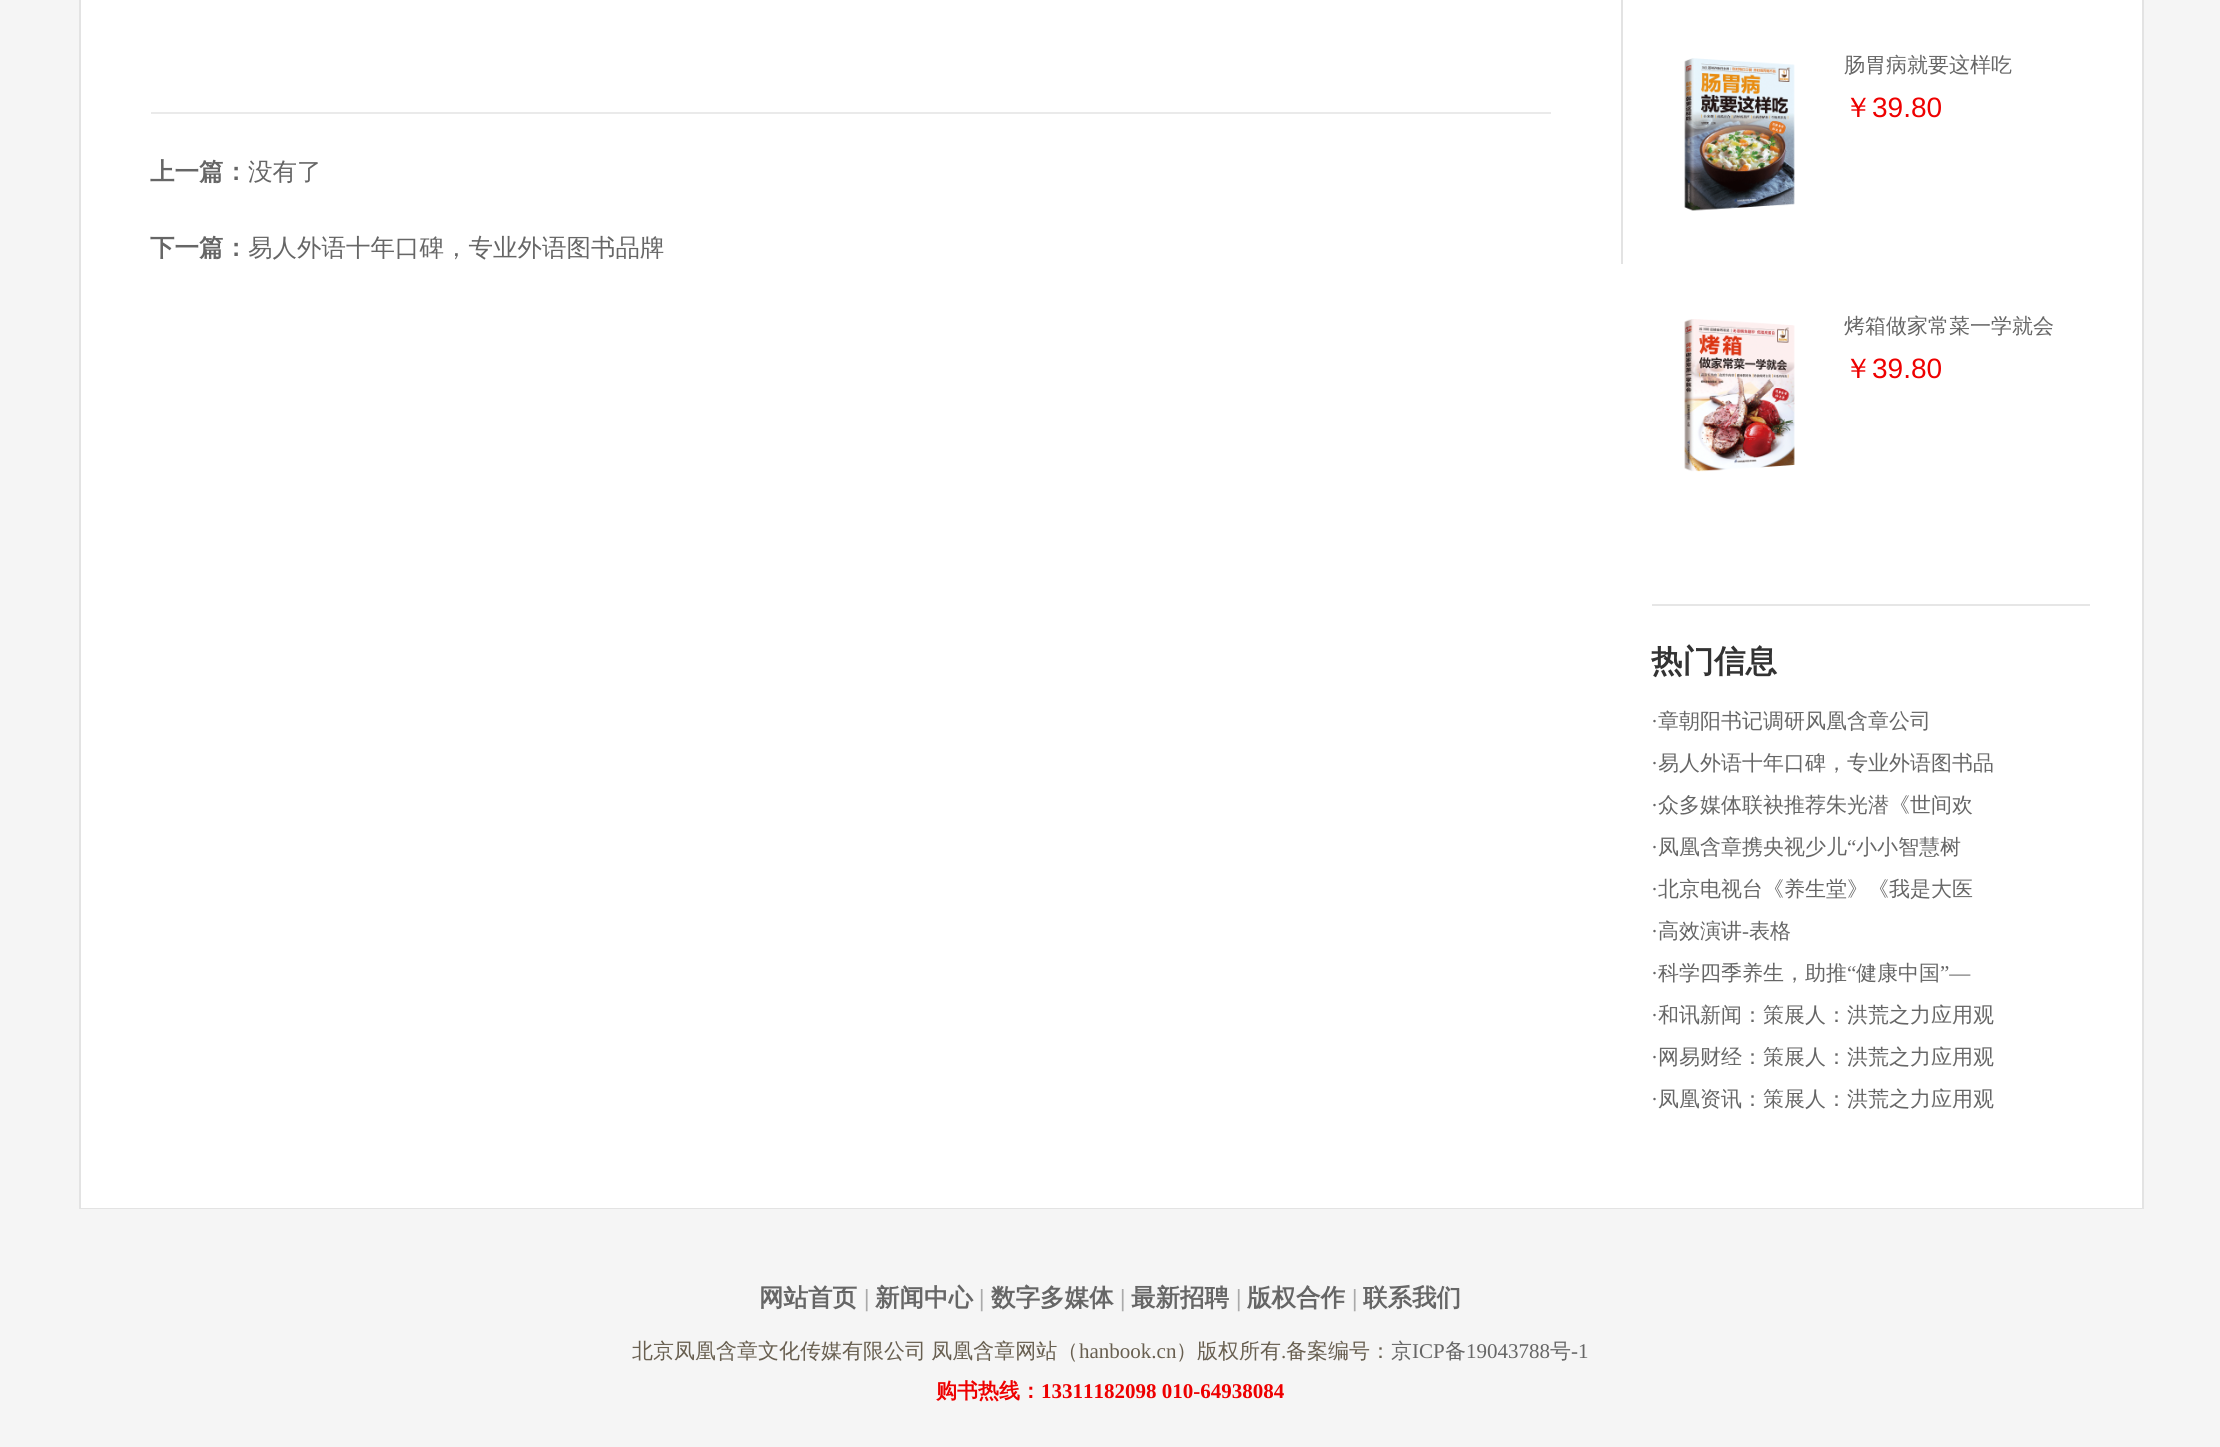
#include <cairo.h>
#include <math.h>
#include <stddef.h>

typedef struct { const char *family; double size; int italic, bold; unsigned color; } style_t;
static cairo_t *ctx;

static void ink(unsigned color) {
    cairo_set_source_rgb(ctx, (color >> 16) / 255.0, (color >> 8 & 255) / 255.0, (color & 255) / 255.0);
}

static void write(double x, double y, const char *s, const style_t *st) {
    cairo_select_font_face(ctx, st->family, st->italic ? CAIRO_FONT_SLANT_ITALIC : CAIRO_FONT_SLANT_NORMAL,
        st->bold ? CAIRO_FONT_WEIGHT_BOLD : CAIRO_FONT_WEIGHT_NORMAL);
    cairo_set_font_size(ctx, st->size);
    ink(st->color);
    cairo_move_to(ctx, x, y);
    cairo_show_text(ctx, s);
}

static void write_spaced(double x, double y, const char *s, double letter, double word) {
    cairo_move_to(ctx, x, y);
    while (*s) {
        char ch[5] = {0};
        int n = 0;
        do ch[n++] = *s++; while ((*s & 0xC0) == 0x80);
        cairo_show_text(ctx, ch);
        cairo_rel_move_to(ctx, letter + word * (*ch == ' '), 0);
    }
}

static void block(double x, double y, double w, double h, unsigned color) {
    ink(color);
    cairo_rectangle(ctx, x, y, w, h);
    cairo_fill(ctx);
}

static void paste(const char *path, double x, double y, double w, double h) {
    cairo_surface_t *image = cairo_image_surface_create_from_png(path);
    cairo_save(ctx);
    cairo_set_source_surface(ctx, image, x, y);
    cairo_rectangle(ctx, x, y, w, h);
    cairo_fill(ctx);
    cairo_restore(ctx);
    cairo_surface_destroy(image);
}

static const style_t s1 = {"WenQuanYi Zen Hei", 24.5, 0, 1, 0x666666};
static const style_t s2 = {"WenQuanYi Zen Hei Medium", 24.5, 0, 0, 0x666666};
static const style_t s3 = {"WenQuanYi Zen Hei Medium", 21, 0, 0, 0x666666};
static const style_t s4 = {"WenQuanYi Zen Hei Medium", 28, 0, 0, 0xee0000};
static const style_t s5 = {"Liberation Sans", 28, 0, 0, 0xee0000};
static const style_t s6 = {"WenQuanYi Zen Hei", 31.5, 0, 1, 0x333333};
static const style_t s7 = {"Liberation Serif", 21, 0, 0, 0x666666};
static const style_t s8 = {"Liberation Serif", 24.5, 0, 1, 0xaaaaaa};
static const style_t s9 = {"Liberation Serif", 21, 0, 0, 0x685f50};
static const style_t s10 = {"WenQuanYi Zen Hei Medium", 21, 0, 0, 0x685f50};
static const style_t s11 = {"WenQuanYi Zen Hei", 21, 0, 1, 0xee0000};
static const style_t s12 = {"Liberation Serif", 21, 0, 1, 0xee0000};

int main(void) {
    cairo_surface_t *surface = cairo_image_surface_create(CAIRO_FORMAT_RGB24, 2220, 1447);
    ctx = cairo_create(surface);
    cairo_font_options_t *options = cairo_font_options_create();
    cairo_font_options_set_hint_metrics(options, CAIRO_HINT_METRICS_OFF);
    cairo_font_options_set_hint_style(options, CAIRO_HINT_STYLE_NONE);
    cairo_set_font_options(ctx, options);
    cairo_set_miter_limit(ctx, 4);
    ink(0xf5f5f5);
    cairo_paint(ctx);
    block(81, 0, 2061, 1208, 0xffffff);
    block(2142, 0, 2, 1209, 0xe3e3e3);
    block(79, 1208, 2065, 1, 0xe3e3e3);
    block(79, 0, 2, 1209, 0xe3e3e3);
    block(1621, 0, 2, 264, 0xe3e3e3);
    block(151, 112, 1400, 2, 0xeaeaea);
    write(150, 180, "上一篇：", &s1);
    write(248, 180, "没有了", &s2);
    write(150, 256, "下一篇：", &s1);
    write(248, 256, "易人外语十年口碑，专业外语图书品牌", &s2);
    paste("pic1.png", 1684, 58, 111, 153);
    write(1844, 72, "肠胃病就要这样吃", &s3);
    write(1844, 117, "￥", &s4);
    write(1872, 117, "39.80", &s5);
    paste("pic2.png", 1684, 319, 111, 153);
    write(1844, 333, "烤箱做家常菜一学就会", &s3);
    write(1844, 378, "￥", &s4);
    write(1872, 378, "39.80", &s5);
    block(1652, 604, 438, 2, 0xe6e6e6);
    write(1651, 672, "热门信息", &s6);
    write(1651, 728, "·", &s7);
    write(1658, 728, "章朝阳书记调研风凰含章公司", &s3);
    write(1651, 770, "·", &s7);
    write(1658, 770, "易人外语十年口碑，专业外语图书品", &s3);
    write(1651, 812, "·", &s7);
    write(1658, 812, "众多媒体联袂推荐朱光潜《世间欢", &s3);
    write(1658, 854, "凤凰含章携央视少儿", &s3);
    write(1847, 854, "“", &s7);
    write(1856, 854, "小小智慧树", &s3);
    write(1651, 854, "·", &s7);
    write(1651, 896, "·", &s7);
    write(1658, 896, "北京电视台《养生堂》《我是大医", &s3);
    write(1651, 938, "·", &s7);
    write(1658, 938, "高效演讲", &s3);
    write(1742, 938, "-", &s7);
    write(1749, 938, "表格", &s3);
    write(1651, 980, "·", &s7);
    write(1658, 980, "科学四季养生，助推", &s3);
    write(1847, 980, "“", &s7);
    write(1856, 980, "健康中国", &s3);
    write(1940, 980, "”—", &s7);
    write(1651, 1022, "·", &s7);
    write(1658, 1022, "和讯新闻：策展人：洪荒之力应用观", &s3);
    write(1651, 1064, "·", &s7);
    write(1658, 1064, "网易财经：策展人：洪荒之力应用观", &s3);
    write(1651, 1106, "·", &s7);
    write(1658, 1106, "凤凰资讯：策展人：洪荒之力应用观", &s3);
    write(759, 1306, "网站首页", &s1);
    write(864, 1306, "|", &s8);
    write(875, 1306, "新闻中心", &s1);
    write(979, 1306, "|", &s8);
    write(991, 1306, "数字多媒体", &s1);
    write(1120, 1306, "|", &s8);
    write(1131, 1306, "最新招聘", &s1);
    write(1236, 1306, "|", &s8);
    write(1247, 1306, "版权合作", &s1);
    write(1352, 1306, "|", &s8);
    write(1363, 1306, "联系我们", &s1);
    cairo_select_font_face(ctx, "WenQuanYi Zen Hei Medium", CAIRO_FONT_SLANT_NORMAL, CAIRO_FONT_WEIGHT_NORMAL);
    cairo_set_font_size(ctx, 21);
    ink(0x685f50);
    write_spaced(632, 1358, "北京凤凰含章文化传媒有限公司 凤凰含章网站（", 0, -1);
    write(1079, 1358, "hanbook.cn", &s9);
    write(1176, 1358, "）版权所有", &s10);
    write(1281, 1358, ".", &s9);
    write(1286, 1358, "备案编号：", &s10);
    write(1391, 1358, "京", &s3);
    write(1412, 1358, "ICP", &s7);
    write(1445, 1358, "备", &s3);
    write(1466, 1358, "19043788", &s7);
    write(1550, 1358, "号", &s3);
    write(1571, 1358, "-1", &s7);
    write(936, 1398, "购书热线：", &s11);
    write(1041, 1398, "13311182098 010-64938084", &s12);
    cairo_surface_write_to_png(surface, "screenshot.png");
    cairo_font_options_destroy(options);
    cairo_destroy(ctx);
    cairo_surface_destroy(surface);
    return 0;
}
